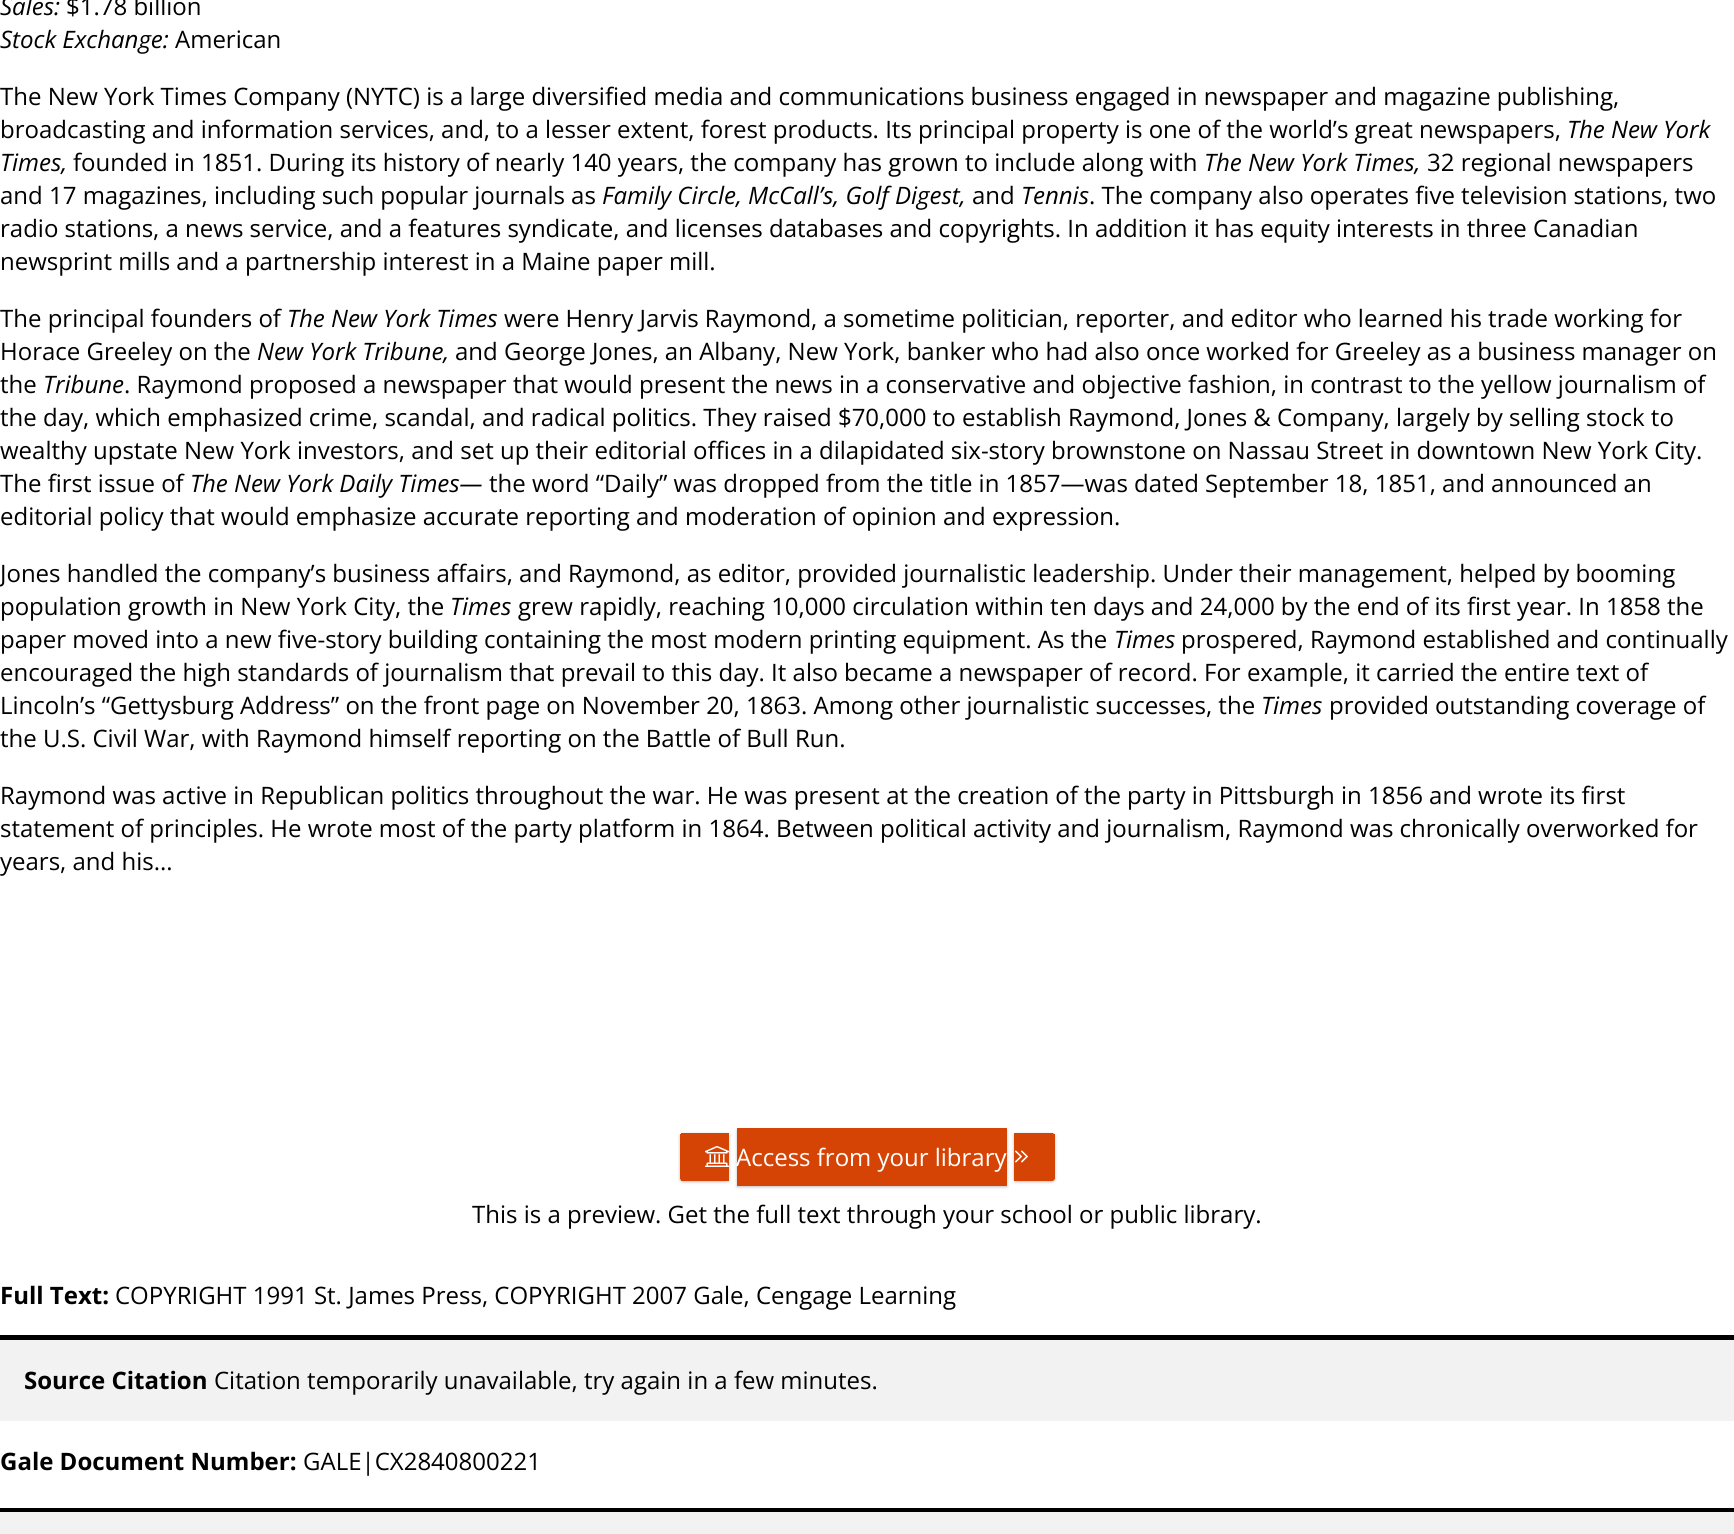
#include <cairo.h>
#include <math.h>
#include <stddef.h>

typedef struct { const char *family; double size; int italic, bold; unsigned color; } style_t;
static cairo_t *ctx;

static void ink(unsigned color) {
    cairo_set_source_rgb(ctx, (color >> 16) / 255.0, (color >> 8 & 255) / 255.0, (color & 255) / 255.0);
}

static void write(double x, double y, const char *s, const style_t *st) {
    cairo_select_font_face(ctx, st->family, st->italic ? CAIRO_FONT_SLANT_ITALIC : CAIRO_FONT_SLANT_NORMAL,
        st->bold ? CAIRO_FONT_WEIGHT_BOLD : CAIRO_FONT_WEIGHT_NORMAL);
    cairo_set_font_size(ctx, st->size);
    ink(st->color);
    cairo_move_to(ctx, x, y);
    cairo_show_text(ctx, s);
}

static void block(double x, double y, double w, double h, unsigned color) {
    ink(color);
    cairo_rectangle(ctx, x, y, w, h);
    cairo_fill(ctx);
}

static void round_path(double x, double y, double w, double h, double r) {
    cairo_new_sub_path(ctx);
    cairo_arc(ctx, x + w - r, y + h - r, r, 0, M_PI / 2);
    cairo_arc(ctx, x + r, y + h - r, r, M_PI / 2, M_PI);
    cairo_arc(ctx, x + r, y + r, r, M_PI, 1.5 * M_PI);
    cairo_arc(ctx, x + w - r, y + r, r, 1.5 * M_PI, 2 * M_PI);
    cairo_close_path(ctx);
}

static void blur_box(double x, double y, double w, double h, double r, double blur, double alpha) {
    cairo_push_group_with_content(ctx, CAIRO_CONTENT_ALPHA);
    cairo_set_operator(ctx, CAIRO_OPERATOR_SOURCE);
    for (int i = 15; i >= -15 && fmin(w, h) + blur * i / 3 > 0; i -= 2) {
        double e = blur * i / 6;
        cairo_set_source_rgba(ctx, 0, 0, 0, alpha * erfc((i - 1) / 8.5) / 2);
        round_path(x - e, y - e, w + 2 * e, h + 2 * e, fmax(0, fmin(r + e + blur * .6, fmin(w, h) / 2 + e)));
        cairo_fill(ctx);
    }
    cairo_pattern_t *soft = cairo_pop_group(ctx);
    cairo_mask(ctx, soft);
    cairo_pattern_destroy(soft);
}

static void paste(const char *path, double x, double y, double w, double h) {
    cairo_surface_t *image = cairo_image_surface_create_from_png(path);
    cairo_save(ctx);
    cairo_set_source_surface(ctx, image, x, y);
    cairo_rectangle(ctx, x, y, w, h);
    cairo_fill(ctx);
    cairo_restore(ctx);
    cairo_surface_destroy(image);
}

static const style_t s1 = {"Open Sans", 24, 1, 0, 0x000000};
static const style_t s2 = {"Open Sans", 24, 0, 0, 0x000000};
static const style_t s3 = {"Open Sans", 24, 0, 0, 0xffffff};
static const style_t s4 = {"Open Sans", 24, 0, 1, 0x000000};

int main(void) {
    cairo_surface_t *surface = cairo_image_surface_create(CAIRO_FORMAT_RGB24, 1734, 1534);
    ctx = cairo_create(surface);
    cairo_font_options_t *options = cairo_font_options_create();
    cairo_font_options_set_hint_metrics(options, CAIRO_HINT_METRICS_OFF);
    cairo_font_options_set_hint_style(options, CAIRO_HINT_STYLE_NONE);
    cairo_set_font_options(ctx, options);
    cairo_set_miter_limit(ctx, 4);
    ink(0xffffff);
    cairo_paint(ctx);
    write(0, 15, "Sales:", &s1);
    write(66, 15, "$1.78 billion", &s2);
    write(0, 48, "Stock Exchange:", &s1);
    write(175, 48, "American", &s2);
    write(0, 105, "The New York Times Company (NYTC) is a large diversified media and communications business engaged in newspaper and magazine publishing,", &s2);
    write(0, 138, "broadcasting and information services, and, to a lesser extent, forest products. Its principal property is one of the world’s great newspapers,", &s2);
    write(1567, 138, "The New York", &s1);
    write(0, 171, "Times,", &s1);
    write(73, 171, "founded in 1851. During its history of nearly 140 years, the company has grown to include along with", &s2);
    write(1204, 171, "The New York Times,", &s1);
    write(1427, 171, "32 regional newspapers", &s2);
    write(0, 204, "and 17 magazines, including such popular journals as", &s2);
    write(602, 204, "Family Circle, McCall’s, Golf Digest,", &s1);
    write(972, 204, "and", &s2);
    write(1021, 204, "Tennis", &s1);
    write(1089, 204, ". The company also operates five television stations, two", &s2);
    write(0, 237, "radio stations, a news service, and a features syndicate, and licenses databases and copyrights. In addition it has equity interests in three Canadian", &s2);
    write(0, 270, "newsprint mills and a partnership interest in a Maine paper mill.", &s2);
    write(0, 327, "The principal founders of", &s2);
    write(287, 327, "The New York Times", &s1);
    write(504, 327, "were Henry Jarvis Raymond, a sometime politician, reporter, and editor who learned his trade working for", &s2);
    write(0, 360, "Horace Greeley on the", &s2);
    write(257, 360, "New York Tribune,", &s1);
    write(455, 360, "and George Jones, an Albany, New York, banker who had also once worked for Greeley as a business manager on", &s2);
    write(0, 393, "the", &s2);
    write(43, 393, "Tribune", &s1);
    write(124, 393, ". Raymond proposed a newspaper that would present the news in a conservative and objective fashion, in contrast to the yellow journalism of", &s2);
    write(0, 426, "the day, which emphasized crime, scandal, and radical politics. They raised $70,000 to establish Raymond, Jones & Company, largely by selling stock to", &s2);
    write(0, 459, "wealthy upstate New York investors, and set up their editorial offices in a dilapidated six-story brownstone on Nassau Street in downtown New York City.", &s2);
    write(0, 492, "The first issue of", &s2);
    write(190, 492, "The New York Daily Times—", &s1);
    write(489, 492, "the word “Daily” was dropped from the title in 1857—was dated September 18, 1851, and announced an", &s2);
    write(0, 525, "editorial policy that would emphasize accurate reporting and moderation of opinion and expression.", &s2);
    write(0, 582, "Jones handled the company’s business affairs, and Raymond, as editor, provided journalistic leadership. Under their management, helped by booming", &s2);
    write(0, 615, "population growth in New York City, the", &s2);
    write(450, 615, "Times", &s1);
    write(518, 615, "grew rapidly, reaching 10,000 circulation within ten days and 24,000 by the end of its first year. In 1858 the", &s2);
    write(0, 648, "paper moved into a new five-story building containing the most modern printing equipment. As the", &s2);
    write(1114, 648, "Times", &s1);
    write(1181, 648, "prospered, Raymond established and continually", &s2);
    write(0, 681, "encouraged the high standards of journalism that prevail to this day. It also became a newspaper of record. For example, it carried the entire text of", &s2);
    write(0, 714, "Lincoln’s “Gettysburg Address” on the front page on November 20, 1863. Among other journalistic successes, the", &s2);
    write(1261, 714, "Times", &s1);
    write(1329, 714, "provided outstanding coverage of", &s2);
    write(0, 747, "the U.S. Civil War, with Raymond himself reporting on the Battle of Bull Run.", &s2);
    write(0, 804, "Raymond was active in Republican politics throughout the war. He was present at the creation of the party in Pittsburgh in 1856 and wrote its first", &s2);
    write(0, 837, "statement of principles. He wrote most of the party platform in 1864. Between political activity and journalism, Raymond was chronically overworked for", &s2);
    write(0, 870, "years, and his...", &s2);
    ink(0x000000);
    blur_box(680, 1134, 49, 48, 3, 1.5, 0.25);
    ink(0xd54405);
    cairo_new_path(ctx);
    cairo_move_to(ctx, 683, 1133);
    cairo_line_to(ctx, 729, 1133);
    cairo_line_to(ctx, 729, 1181);
    cairo_line_to(ctx, 683, 1181);
    cairo_curve_to(ctx, 681.5, 1181, 680, 1179.5, 680, 1178);
    cairo_line_to(ctx, 680, 1136);
    cairo_curve_to(ctx, 680, 1134.5, 681.5, 1133, 683, 1133);
    cairo_close_path(ctx);
    cairo_fill(ctx);
    paste("pic1.png", 705, 1146, 24, 21);
    ink(0x000000);
    blur_box(737, 1130, 270, 57, 0, 1.5, 0.25);
    block(737, 1128, 270, 58, 0xd54405);
    write(736, 1166, "Access from your library", &s3);
    block(681, 1133, 2, 1, 0xd54405);
    block(681, 1180, 2, 1, 0xd54405);
    block(680, 1134, 1, 45, 0xd54405);
    ink(0x000000);
    blur_box(1014, 1134, 41, 48, 3, 1.5, 0.25);
    ink(0xd54405);
    cairo_new_path(ctx);
    cairo_move_to(ctx, 1014, 1133);
    cairo_line_to(ctx, 1052, 1133);
    cairo_curve_to(ctx, 1053.5, 1133, 1055, 1134.5, 1055, 1136);
    cairo_line_to(ctx, 1055, 1178);
    cairo_curve_to(ctx, 1055, 1179.5, 1053.5, 1181, 1052, 1181);
    cairo_line_to(ctx, 1014, 1181);
    cairo_close_path(ctx);
    cairo_fill(ctx);
    block(1052, 1133, 1, 1, 0xd54405);
    block(1054, 1134, 1, 45, 0xd54405);
    block(1052, 1180, 1, 1, 0xd54405);
    paste("pic2.png", 1015, 1150, 13, 13);
    write(472, 1223, "This is a preview. Get the full text through your school or public library.", &s2);
    write(0, 1304, "Full Text:", &s4);
    write(115, 1304, "COPYRIGHT 1991 St. James Press, COPYRIGHT 2007 Gale, Cengage Learning", &s2);
    block(0, 1340, 1734, 81, 0xf2f2f2);
    block(0, 1335, 1734, 5, 0x000000);
    write(24, 1389, "Source Citation", &s4);
    write(214, 1389, "Citation temporarily unavailable, try again in a few minutes.", &s2);
    write(0, 1470, "Gale Document Number:", &s4);
    write(303, 1470, "GALE|CX2840800221", &s2);
    block(0, 1508, 1734, 4, 0x000000);
    block(0, 1512, 1734, 22, 0xf2f2f2);
    cairo_surface_write_to_png(surface, "screenshot.png");
    cairo_font_options_destroy(options);
    cairo_destroy(ctx);
    cairo_surface_destroy(surface);
    return 0;
}
